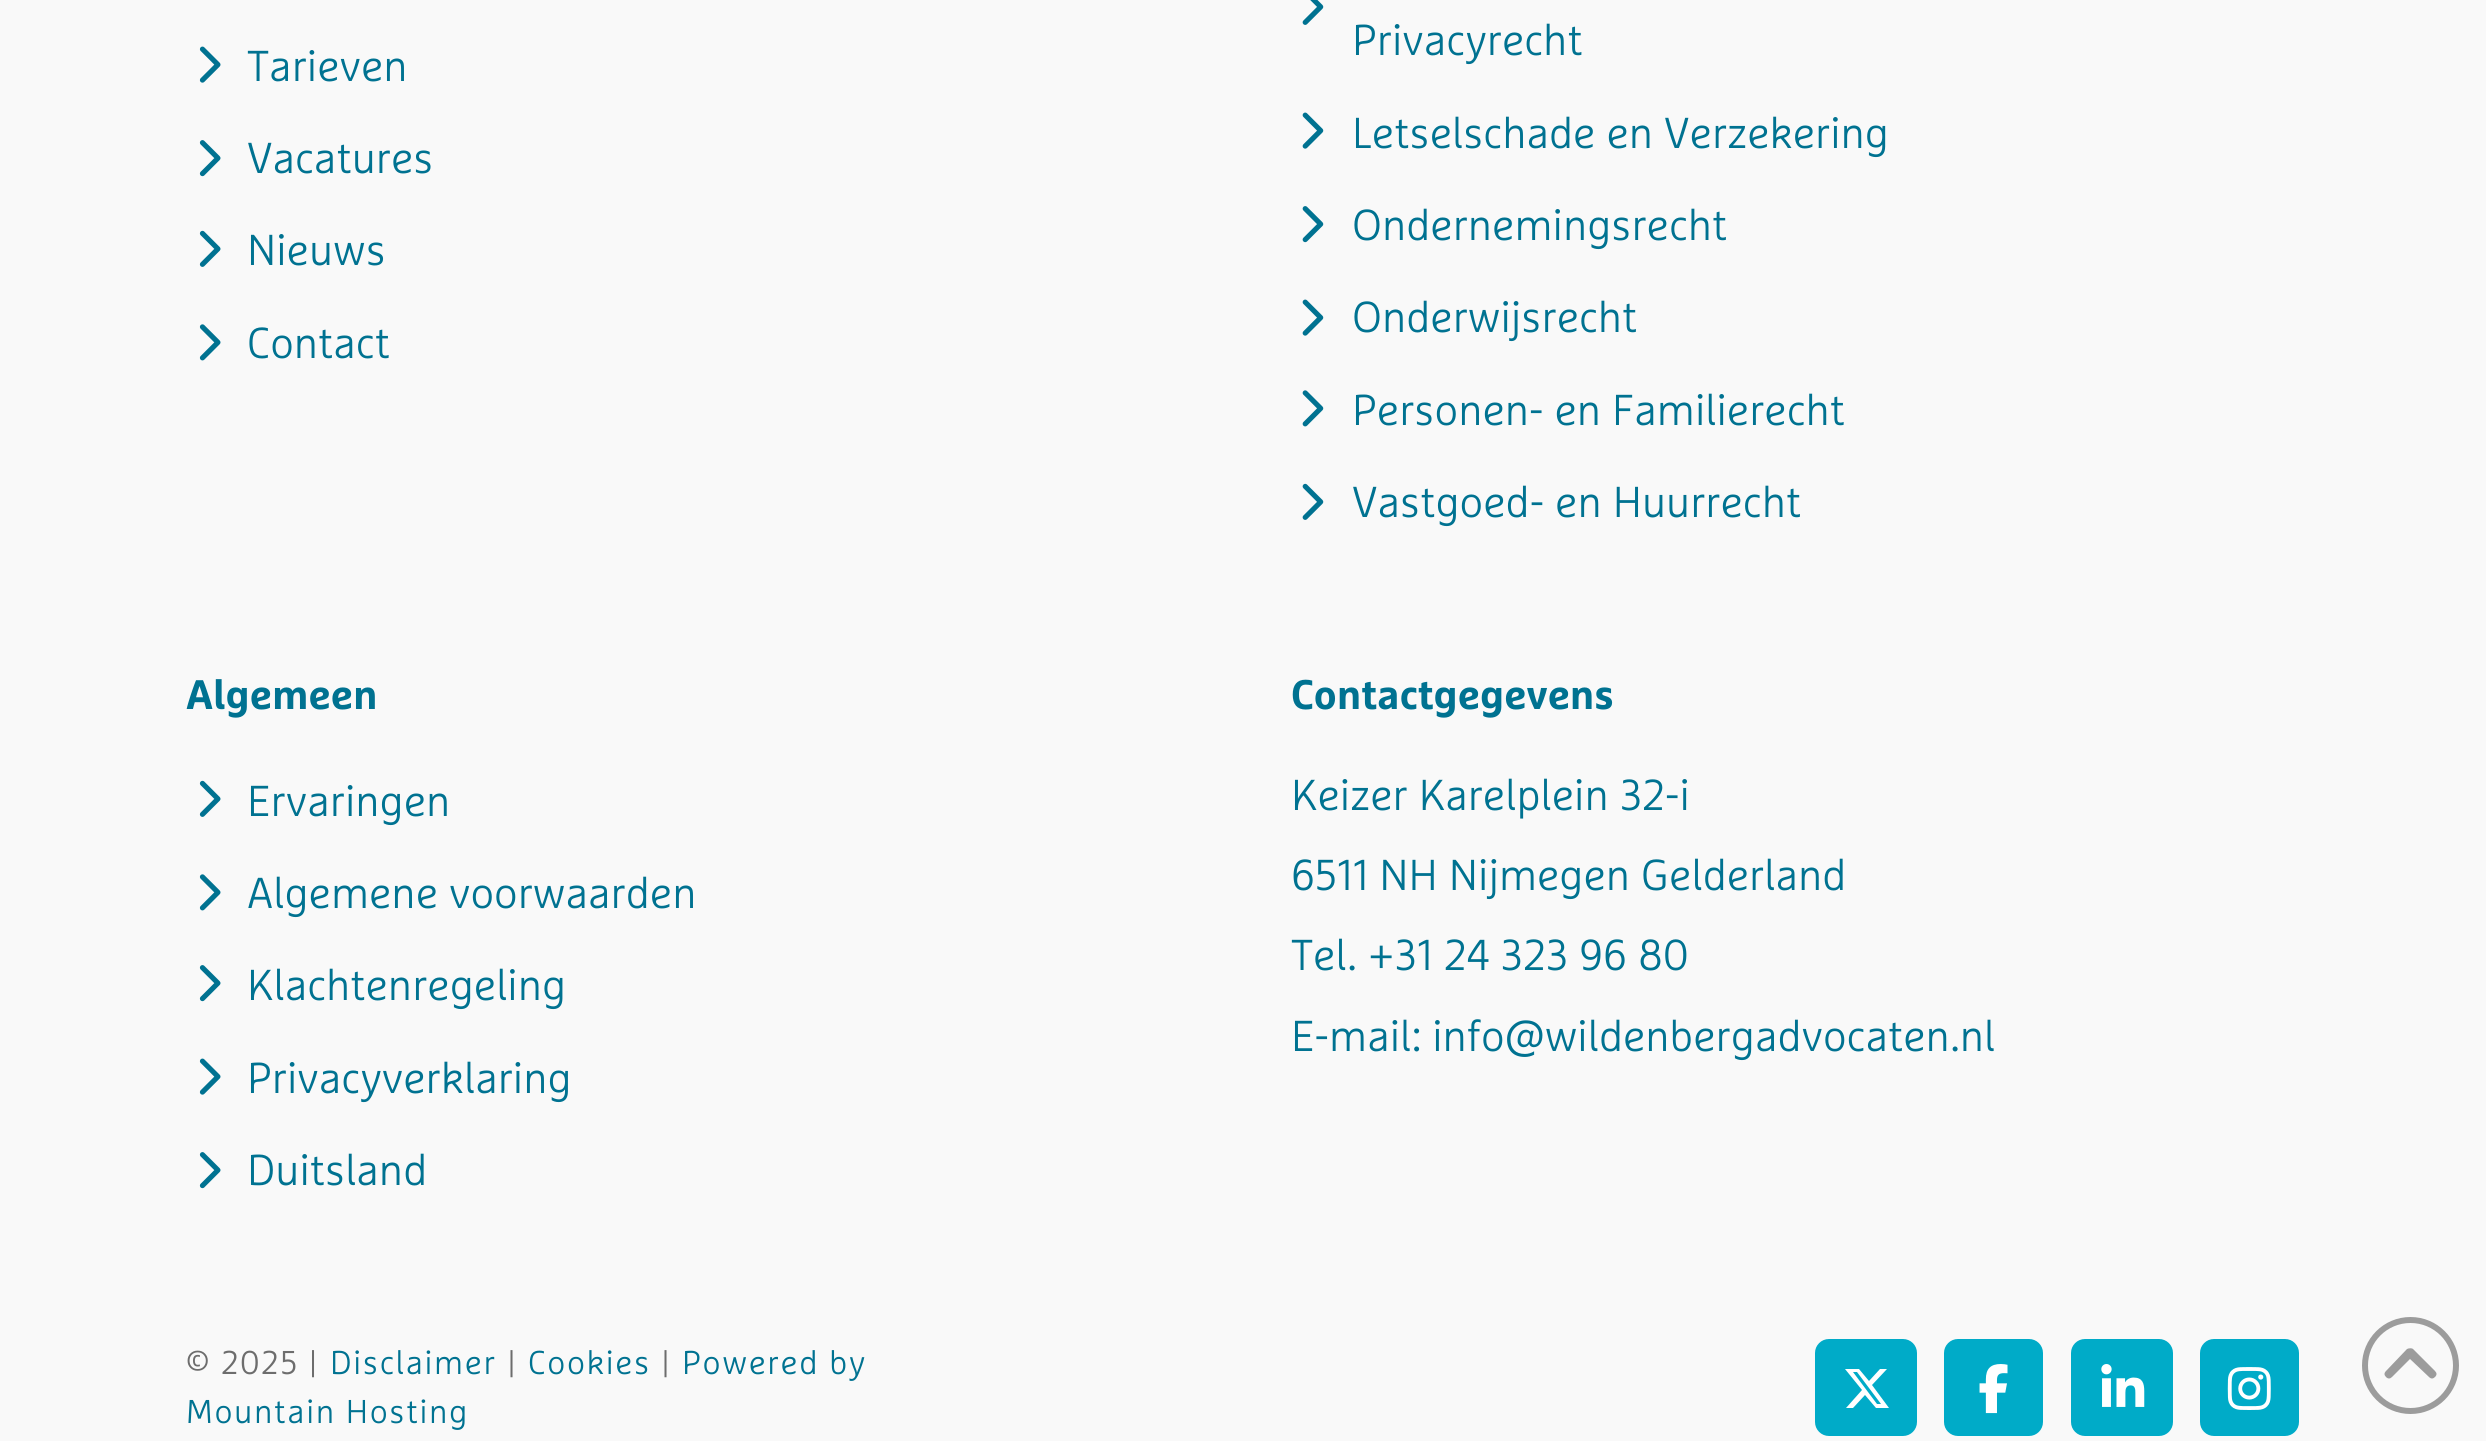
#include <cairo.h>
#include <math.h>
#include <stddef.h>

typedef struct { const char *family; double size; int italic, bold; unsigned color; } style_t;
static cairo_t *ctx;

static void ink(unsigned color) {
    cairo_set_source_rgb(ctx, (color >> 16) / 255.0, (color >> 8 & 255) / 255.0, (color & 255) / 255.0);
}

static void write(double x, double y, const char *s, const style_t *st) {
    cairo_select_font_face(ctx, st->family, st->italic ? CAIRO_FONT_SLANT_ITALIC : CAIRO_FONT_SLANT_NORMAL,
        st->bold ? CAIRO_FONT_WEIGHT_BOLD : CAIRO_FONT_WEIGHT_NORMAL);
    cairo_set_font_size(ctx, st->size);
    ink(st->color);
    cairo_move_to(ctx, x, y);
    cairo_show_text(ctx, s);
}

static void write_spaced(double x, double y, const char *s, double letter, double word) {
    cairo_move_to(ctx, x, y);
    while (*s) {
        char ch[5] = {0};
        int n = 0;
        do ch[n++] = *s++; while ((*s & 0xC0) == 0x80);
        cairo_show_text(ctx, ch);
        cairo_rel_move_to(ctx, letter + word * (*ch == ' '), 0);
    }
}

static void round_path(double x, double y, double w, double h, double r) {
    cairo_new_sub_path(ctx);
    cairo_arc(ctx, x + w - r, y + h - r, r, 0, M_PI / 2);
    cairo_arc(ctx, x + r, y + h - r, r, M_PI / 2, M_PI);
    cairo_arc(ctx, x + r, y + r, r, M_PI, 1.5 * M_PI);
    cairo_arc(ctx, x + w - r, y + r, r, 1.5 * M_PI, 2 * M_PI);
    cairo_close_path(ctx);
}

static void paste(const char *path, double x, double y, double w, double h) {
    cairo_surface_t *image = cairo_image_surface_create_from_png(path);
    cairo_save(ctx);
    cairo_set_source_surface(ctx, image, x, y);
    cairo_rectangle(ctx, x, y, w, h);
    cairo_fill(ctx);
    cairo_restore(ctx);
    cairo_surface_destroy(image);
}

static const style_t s1 = {"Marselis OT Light", 43.25, 0, 0, 0x007291};
static const style_t s2 = {"Marselis OT", 41.25, 0, 1, 0x007291};

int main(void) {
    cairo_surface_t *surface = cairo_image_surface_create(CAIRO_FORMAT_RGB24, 2486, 1441);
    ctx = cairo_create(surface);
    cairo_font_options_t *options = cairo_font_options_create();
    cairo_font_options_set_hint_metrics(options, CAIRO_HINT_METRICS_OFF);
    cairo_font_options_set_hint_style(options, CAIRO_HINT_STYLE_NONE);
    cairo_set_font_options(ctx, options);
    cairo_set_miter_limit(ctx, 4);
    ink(0xf9f9f9);
    cairo_paint(ctx);
    paste("pic1.png", 199, 46, 22, 37);
    write(247, 81, "Tarieven", &s1);
    paste("pic2.png", 199, 140, 22, 37);
    write(247, 173, "Vacatures", &s1);
    paste("pic3.png", 199, 230, 22, 37);
    write(247, 265, "Nieuws", &s1);
    paste("pic4.png", 199, 324, 22, 37);
    write(247, 358, "Contact", &s1);
    paste("pic5.png", 1302, 0, 22, 25);
    write(1352, 55, "Privacyrecht", &s1);
    paste("pic6.png", 1302, 112, 22, 37);
    write(1352, 148, "Letselschade en Verzekering", &s1);
    paste("pic7.png", 1302, 206, 22, 37);
    write(1352, 240, "Ondernemingsrecht", &s1);
    paste("pic6.png", 1302, 299, 22, 37);
    write(1352, 332, "Onderwijsrecht", &s1);
    paste("pic8.png", 1302, 390, 22, 37);
    write(1352, 425, "Personen- en Familierecht", &s1);
    paste("pic9.png", 1302, 483, 22, 37);
    write(1352, 517, "Vastgoed- en Huurrecht", &s1);
    write(186, 709, "Algemeen", &s2);
    paste("pic3.png", 199, 780, 22, 37);
    write(247, 816, "Ervaringen", &s1);
    paste("pic4.png", 199, 874, 22, 37);
    write(247, 908, "Algemene voorwaarden", &s1);
    paste("pic2.png", 199, 965, 22, 37);
    write(247, 1000, "Klachtenregeling", &s1);
    paste("pic1.png", 199, 1058, 22, 37);
    write(247, 1093, "Privacyverklaring", &s1);
    paste("pic2.png", 199, 1152, 22, 37);
    write(247, 1185, "Duitsland", &s1);
    write(1291, 709, "Contactgegevens", &s2);
    write(1291, 810, "Keizer Karelplein 32-i", &s1);
    write(1291, 890, "6511 NH Nijmegen Gelderland", &s1);
    write(1291, 970, "Tel. +31 24 323 96 80", &s1);
    write(1291, 1051, "E-mail: info@wildenbergadvocaten.nl", &s1);
    cairo_set_font_size(ctx, 33);
    ink(0x6d6d6d);
    write_spaced(186, 1374, "© 2025 |", 1.6, 0);
    ink(0x007291);
    write_spaced(330, 1374, "Disclaimer", 1.6, 0);
    ink(0x6d6d6d);
    write_spaced(507, 1374, "|", 1.6, 0);
    ink(0x007291);
    write_spaced(528, 1374, "Cookies", 1.6, 0);
    ink(0x6d6d6d);
    write_spaced(661, 1374, "|", 1.6, 0);
    ink(0x007291);
    write_spaced(682, 1374, "Powered by", 1.6, 0);
    write_spaced(186, 1423, "Mountain Hosting", 1.6, 0);
    ink(0x00abc8);
    round_path(1815, 1339, 102, 97, 14);
    cairo_fill(ctx);
    ink(0xffffff);
    cairo_new_path(ctx);
    cairo_move_to(ctx, 1880, 1369);
    cairo_line_to(ctx, 1887, 1369);
    cairo_line_to(ctx, 1872, 1385);
    cairo_line_to(ctx, 1889, 1408);
    cairo_line_to(ctx, 1876, 1408);
    cairo_line_to(ctx, 1865, 1395);
    cairo_line_to(ctx, 1853, 1408);
    cairo_line_to(ctx, 1846, 1408);
    cairo_line_to(ctx, 1862, 1390);
    cairo_line_to(ctx, 1845, 1369);
    cairo_line_to(ctx, 1859, 1369);
    cairo_line_to(ctx, 1869, 1381);
    cairo_close_path(ctx);
    cairo_move_to(ctx, 1877, 1404);
    cairo_line_to(ctx, 1881, 1404);
    cairo_line_to(ctx, 1857, 1372);
    cairo_line_to(ctx, 1853, 1372);
    cairo_close_path(ctx);
    cairo_fill(ctx);
    ink(0x00abc8);
    round_path(1944, 1339, 99, 97, 14);
    cairo_fill(ctx);
    paste("pic10.png", 1979, 1364, 29, 50);
    round_path(2071, 1339, 102, 97, 14);
    cairo_fill(ctx);
    paste("pic11.png", 2101, 1364, 44, 43);
    round_path(2200, 1339, 99, 97, 14);
    cairo_fill(ctx);
    paste("pic12.png", 2227, 1367, 44, 43);
    cairo_arc(ctx, 2410.5, 1365.5, 45.5, 0, 2 * M_PI);
    ink(0x9c9c9c);
    cairo_set_line_width(ctx, 6);
    cairo_stroke(ctx);
    cairo_new_path(ctx);
    cairo_move_to(ctx, 2407, 1349);
    cairo_curve_to(ctx, 2409, 1348, 2412, 1348, 2413, 1349);
    cairo_line_to(ctx, 2435, 1371);
    cairo_curve_to(ctx, 2437, 1373, 2437, 1375, 2435, 1377);
    cairo_curve_to(ctx, 2433, 1379, 2431, 1379, 2429, 1377);
    cairo_line_to(ctx, 2410, 1359);
    cairo_line_to(ctx, 2392, 1377);
    cairo_curve_to(ctx, 2390, 1379, 2388, 1379, 2386, 1377);
    cairo_curve_to(ctx, 2384, 1375, 2384, 1373, 2386, 1371);
    cairo_close_path(ctx);
    cairo_fill(ctx);
    cairo_surface_write_to_png(surface, "screenshot.png");
    cairo_font_options_destroy(options);
    cairo_destroy(ctx);
    cairo_surface_destroy(surface);
    return 0;
}
